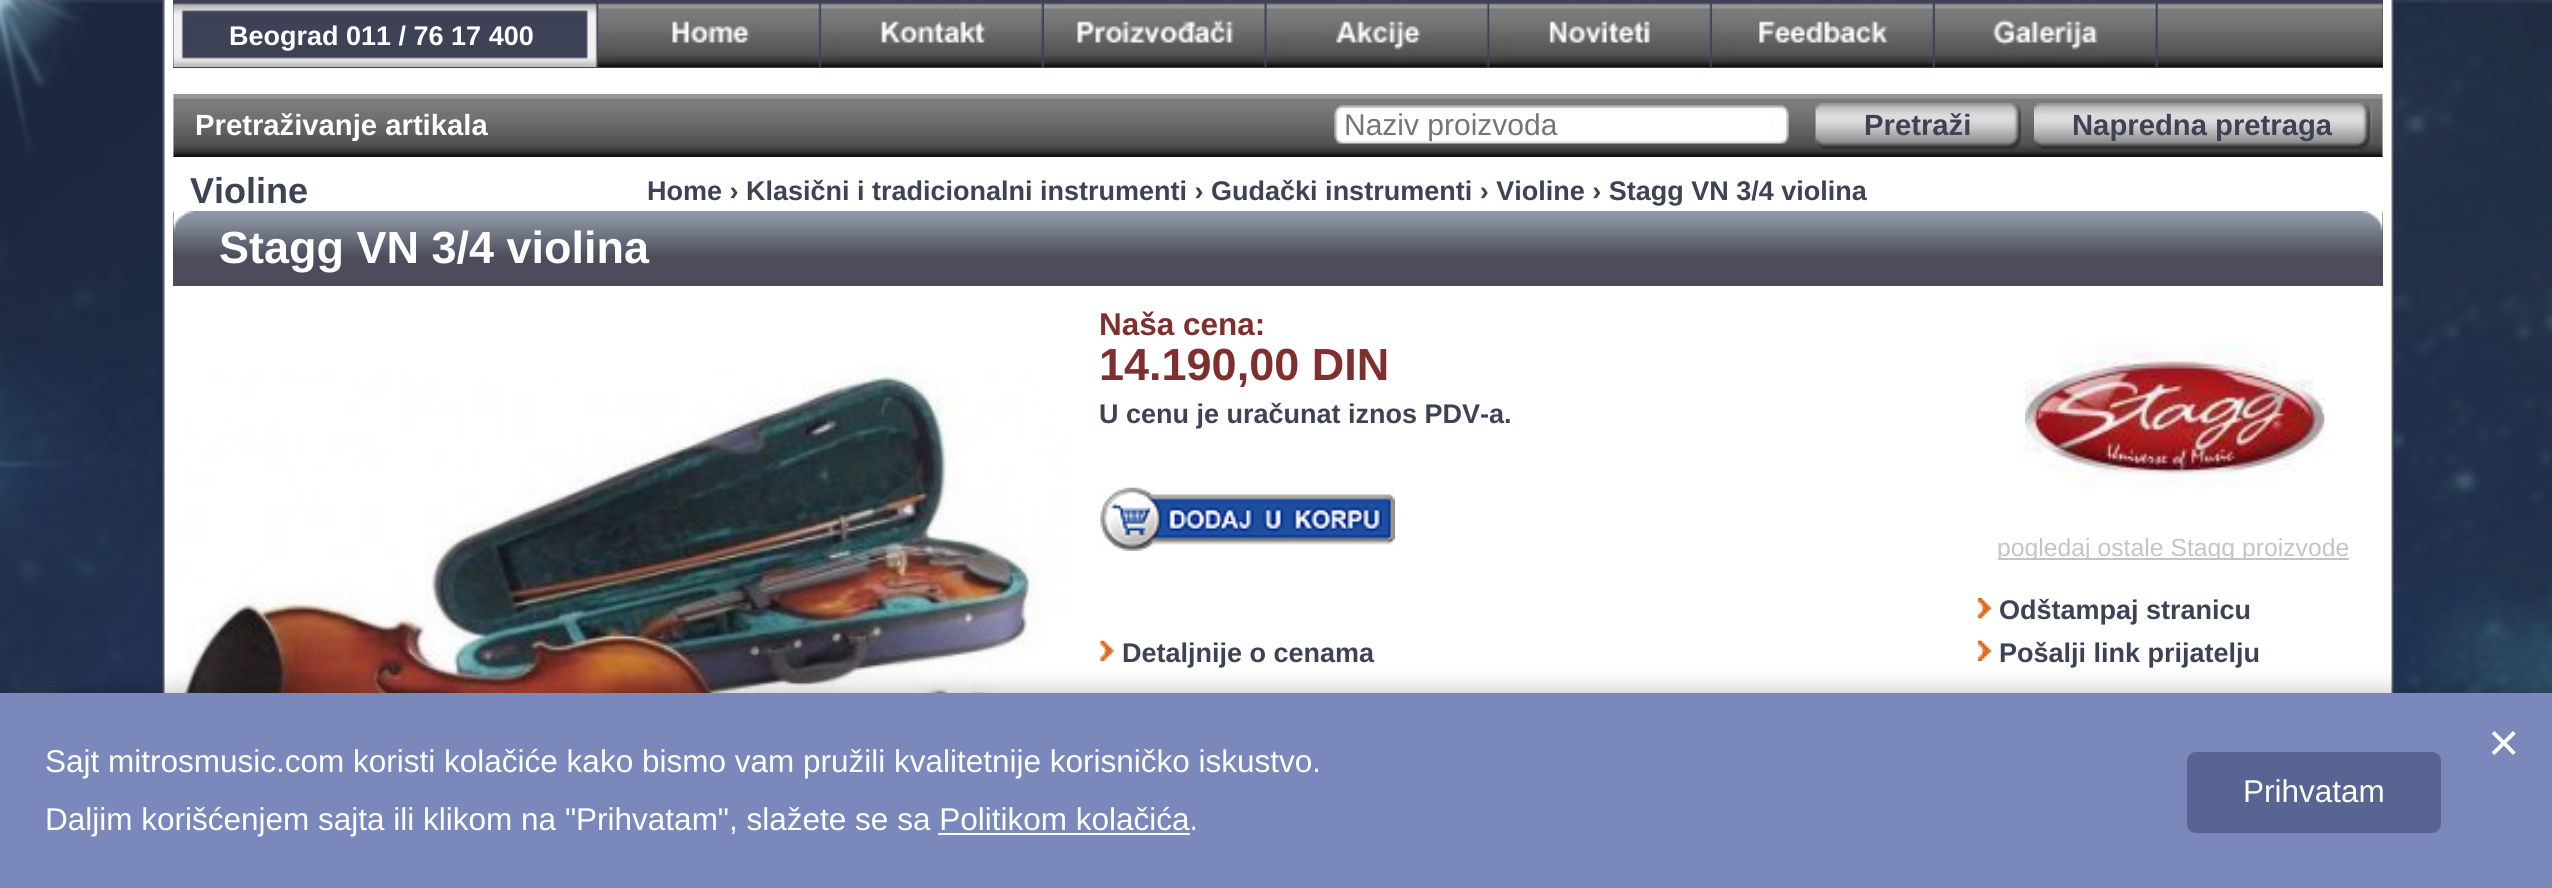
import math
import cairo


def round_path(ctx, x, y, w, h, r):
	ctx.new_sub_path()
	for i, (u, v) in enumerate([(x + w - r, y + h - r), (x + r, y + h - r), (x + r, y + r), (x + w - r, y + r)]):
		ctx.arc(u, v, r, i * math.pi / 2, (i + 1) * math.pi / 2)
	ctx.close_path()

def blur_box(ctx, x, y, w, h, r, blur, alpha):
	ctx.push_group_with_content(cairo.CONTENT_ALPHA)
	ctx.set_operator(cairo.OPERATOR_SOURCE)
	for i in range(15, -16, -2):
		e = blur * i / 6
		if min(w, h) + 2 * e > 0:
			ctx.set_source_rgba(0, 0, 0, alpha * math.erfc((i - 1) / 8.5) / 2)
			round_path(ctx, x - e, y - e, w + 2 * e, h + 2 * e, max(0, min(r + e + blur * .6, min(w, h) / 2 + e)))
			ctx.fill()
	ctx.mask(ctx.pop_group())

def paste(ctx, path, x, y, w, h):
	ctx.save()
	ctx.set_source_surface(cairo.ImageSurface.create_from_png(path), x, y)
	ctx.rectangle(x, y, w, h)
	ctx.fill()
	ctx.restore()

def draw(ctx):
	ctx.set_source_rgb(1, 1, 1)
	ctx.paint()
	paste(ctx, 'media/1.png', 0, 0, 2552, 693)
	paste(ctx, 'media/2.png', 162, 0, 2232, 693)
	ctx.set_source_rgb(0.243, 0.263, 0.337)
	ctx.rectangle(173, 0, 2210, 68)
	ctx.fill()
	paste(ctx, 'media/3.png', 173, 0, 426, 67)
	ctx.select_font_face('Liberation Sans', cairo.FONT_SLANT_NORMAL, cairo.FONT_WEIGHT_BOLD)
	ctx.set_font_size(27)
	ctx.set_source_rgb(1, 1, 1)
	ctx.move_to(229, 45)
	ctx.show_text('Beograd 011 / 76 17 400')
	paste(ctx, 'media/4.png', 598, 3, 1785, 64)
	paste(ctx, 'media/5.png', 598, 3, 224, 64)
	paste(ctx, 'media/6.png', 821, 3, 223, 64)
	paste(ctx, 'media/7.png', 1065, 3, 202, 64)
	paste(ctx, 'media/8.png', 1266, 3, 224, 64)
	paste(ctx, 'media/9.png', 1489, 3, 224, 64)
	paste(ctx, 'media/10.png', 1712, 3, 223, 64)
	paste(ctx, 'media/11.png', 1993, 3, 165, 64)
	paste(ctx, 'media/12.png', 173, 94, 2210, 63)
	ctx.set_font_size(29.25)
	ctx.move_to(195, 135)
	ctx.show_text('Pretraživanje artikala')
	paste(ctx, 'media/13.png', 1334, 105, 455, 39)
	ctx.select_font_face('Liberation Sans')
	ctx.set_font_size(30)
	ctx.set_source_rgb(0.459, 0.459, 0.459)
	ctx.move_to(1344, 135)
	ctx.show_text('Naziv proizvoda')
	paste(ctx, 'media/14.png', 1815, 103, 208, 47)
	paste(ctx, 'media/15.png', 1815, 103, 8, 47)
	ctx.select_font_face('Liberation Sans', cairo.FONT_SLANT_NORMAL, cairo.FONT_WEIGHT_BOLD)
	ctx.set_font_size(29.25)
	ctx.set_source_rgb(0.239, 0.259, 0.333)
	ctx.move_to(1864, 135)
	ctx.show_text('Pretraži')
	paste(ctx, 'media/16.png', 2008, 103, 15, 47)
	paste(ctx, 'media/17.png', 2042, 103, 330, 47)
	paste(ctx, 'media/18.png', 2034, 103, 8, 47)
	ctx.move_to(2072, 135)
	ctx.show_text('Napredna pretraga')
	paste(ctx, 'media/19.png', 2357, 103, 15, 47)
	ctx.set_font_size(36)
	ctx.move_to(190, 203)
	ctx.show_text('Violine')
	ctx.set_font_size(27)
	ctx.move_to(647, 200)
	ctx.show_text('Home › Klasični i tradicionalni instrumenti › Gudački instrumenti › Violine › Stagg VN 3/4 violina')
	ctx.set_source_rgb(0.302, 0.298, 0.361)
	ctx.rectangle(173, 212, 2210, 74)
	ctx.fill()
	paste(ctx, 'media/20.png', 173, 211, 2210, 45)
	paste(ctx, 'media/21.png', 173, 211, 21, 36)
	ctx.set_font_size(45)
	ctx.set_source_rgb(1, 1, 1)
	ctx.move_to(219, 263)
	ctx.show_text('Stagg VN 3/4 violina')
	paste(ctx, 'media/22.png', 2362, 211, 21, 36)
	paste(ctx, 'media/23.png', 174, 365, 899, 328)
	ctx.set_font_size(31.5)
	ctx.set_source_rgb(0.502, 0.184, 0.184)
	ctx.move_to(1099, 335)
	ctx.show_text('Naša cena:')
	ctx.set_font_size(45)
	ctx.move_to(1099, 380)
	ctx.show_text('14.190,00 DIN')
	ctx.set_font_size(27)
	ctx.set_source_rgb(0.239, 0.259, 0.333)
	ctx.move_to(1099, 423)
	ctx.show_text('U cenu je uračunat iznos PDV-a.')
	paste(ctx, 'media/24.png', 1100, 487, 295, 64)
	paste(ctx, 'media/25.png', 2025, 343, 300, 146)
	ctx.set_source_rgb(0.761, 0.769, 0.78)
	ctx.rectangle(1998, 558, 351, 2)
	ctx.fill()
	ctx.save()
	ctx.rectangle(1978, 308, 394, 252)
	ctx.clip()
	ctx.select_font_face('Liberation Sans')
	ctx.set_font_size(24.75)
	ctx.move_to(1997, 556)
	ctx.show_text('pogledaj ostale Stagg proizvode')
	ctx.restore()
	paste(ctx, 'media/26.png', 1977, 598, 15, 21)
	ctx.set_source_rgb(0.239, 0.259, 0.333)
	ctx.move_to(1999, 619)
	ctx.show_text('Odštampaj stranicu')
	paste(ctx, 'media/27.png', 1100, 640, 14, 21)
	ctx.move_to(1122, 662)
	ctx.show_text('Detaljnije o cenama')
	paste(ctx, 'media/28.png', 1977, 640, 15, 21)
	ctx.move_to(1999, 662)
	ctx.show_text('Pošalji link prijatelju')
	ctx.set_source_rgb(0, 0, 0)
	blur_box(ctx, 0, 689, 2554, 195, 0, 11, 0.2)
	ctx.set_source_rgb(0.478, 0.533, 0.737)
	ctx.rectangle(0, 693, 2552, 195)
	ctx.fill()
	ctx.select_font_face('Liberation Sans')
	ctx.set_font_size(54)
	ctx.set_source_rgb(1, 1, 1)
	ctx.move_to(2488, 761)
	ctx.show_text('×')
	ctx.set_font_size(31.5)
	ctx.move_to(45, 772)
	ctx.show_text('Sajt mitrosmusic.com koristi kolačiće kako bismo vam pružili kvalitetnije korisničko iskustvo.')
	ctx.move_to(45, 830)
	ctx.show_text('Daljim korišćenjem sajta ili klikom na "Prihvatam", slažete se sa Politikom kolačića.')
	ctx.rectangle(938, 833, 252, 2)
	ctx.fill()
	ctx.set_source_rgb(0.345, 0.392, 0.569)
	round_path(ctx, 2187, 752, 254, 81, 9)
	ctx.fill()
	ctx.set_source_rgb(1, 1, 1)
	ctx.move_to(2243, 802)
	ctx.show_text('Prihvatam')


surface = cairo.ImageSurface(cairo.FORMAT_RGB24, 2552, 888)
ctx = cairo.Context(surface)
options = cairo.FontOptions()
options.set_hint_metrics(cairo.HINT_METRICS_OFF)
options.set_hint_style(cairo.HINT_STYLE_NONE)
ctx.set_font_options(options)
ctx.set_miter_limit(4)
draw(ctx)
surface.write_to_png('image.png')
